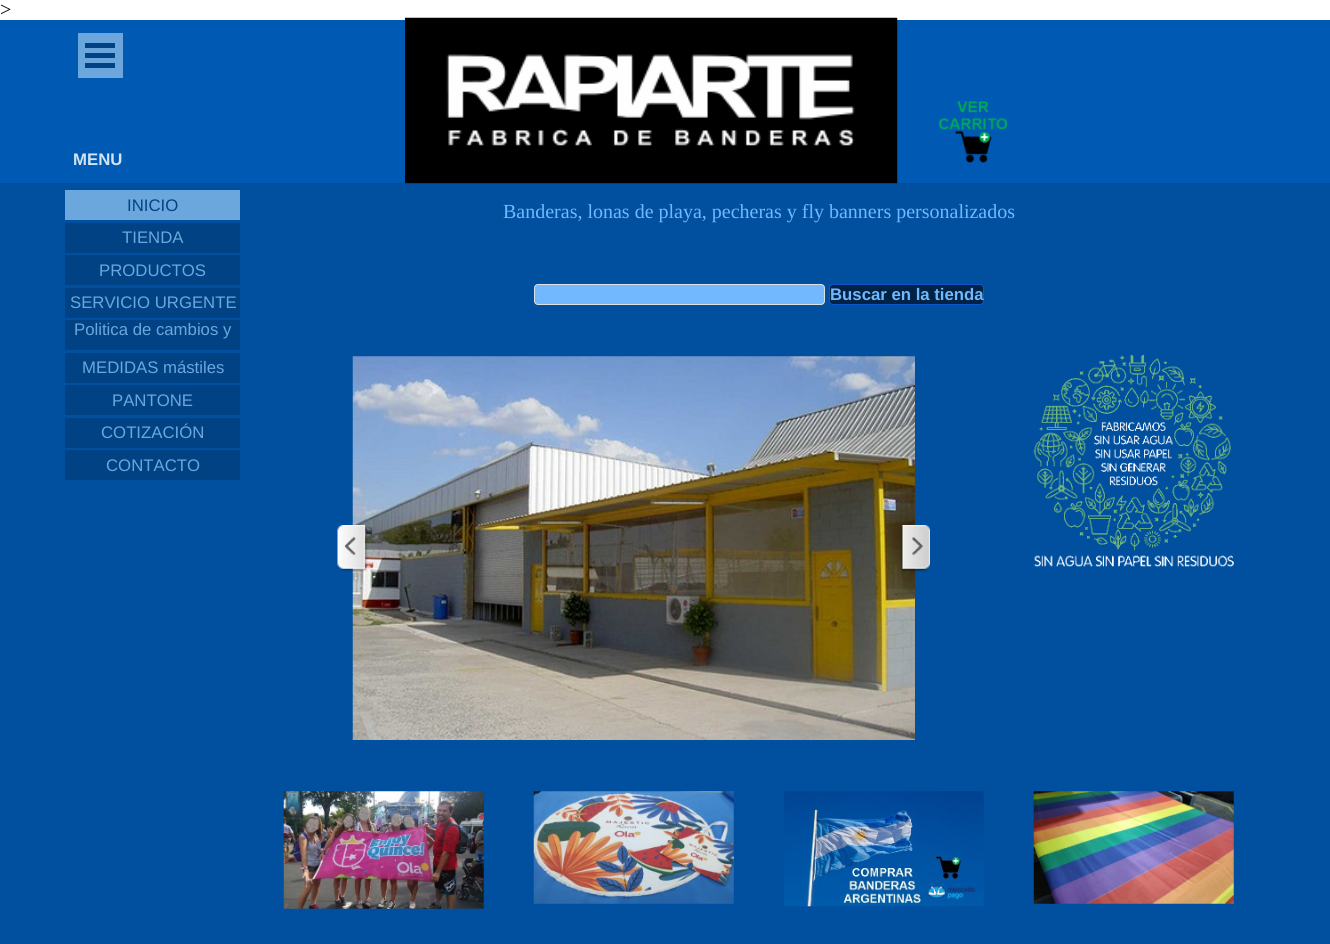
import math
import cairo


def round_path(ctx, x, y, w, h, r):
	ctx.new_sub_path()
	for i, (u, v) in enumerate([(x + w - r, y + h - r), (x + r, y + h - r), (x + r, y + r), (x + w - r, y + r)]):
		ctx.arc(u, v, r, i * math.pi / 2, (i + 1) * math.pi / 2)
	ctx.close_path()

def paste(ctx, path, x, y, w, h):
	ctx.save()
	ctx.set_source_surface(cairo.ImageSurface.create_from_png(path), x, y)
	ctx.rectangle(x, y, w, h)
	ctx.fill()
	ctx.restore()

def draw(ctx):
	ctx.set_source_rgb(1, 1, 1)
	ctx.paint()
	ctx.select_font_face('Liberation Serif')
	ctx.set_font_size(20)
	ctx.set_source_rgb(0, 0, 0)
	ctx.move_to(0, 16)
	ctx.show_text('>')
	ctx.set_source_rgb(0, 0.314, 0.624)
	ctx.rectangle(0, 183, 1330, 761)
	ctx.fill()
	ctx.set_source_rgb(0, 0.349, 0.702)
	ctx.rectangle(0, 20, 1330, 163)
	ctx.fill()
	ctx.set_source_rgb(0.42, 0.655, 0.863)
	ctx.rectangle(78, 33, 45, 45)
	ctx.fill()
	ctx.set_source_rgb(0, 0.259, 0.518)
	ctx.rectangle(85, 43, 30, 5)
	ctx.rectangle(85, 53, 30, 5)
	ctx.rectangle(85, 63, 30, 5)
	ctx.fill()
	paste(ctx, 'media/1.png', 405, 17, 493, 167)
	ctx.select_font_face('Liberation Sans', cairo.FONT_SLANT_NORMAL, cairo.FONT_WEIGHT_BOLD)
	ctx.set_font_size(16.75)
	ctx.set_source_rgb(0.824, 0.894, 0.957)
	ctx.move_to(73, 165)
	ctx.show_text('MENU')
	paste(ctx, 'media/2.png', 938, 101, 70, 62)
	ctx.set_source_rgb(0.42, 0.655, 0.863)
	ctx.rectangle(65, 190, 175, 30)
	ctx.fill()
	ctx.select_font_face('Liberation Sans')
	ctx.set_source_rgb(0, 0.259, 0.518)
	ctx.move_to(127, 211)
	ctx.show_text('INICIO')
	ctx.rectangle(65, 223, 175, 30)
	ctx.fill()
	ctx.set_source_rgb(0.42, 0.655, 0.863)
	ctx.move_to(122, 243)
	ctx.show_text('TIENDA')
	ctx.set_source_rgb(0, 0.259, 0.518)
	ctx.rectangle(65, 255, 175, 30)
	ctx.fill()
	ctx.set_source_rgb(0.42, 0.655, 0.863)
	ctx.move_to(99, 276)
	ctx.show_text('PRODUCTOS')
	ctx.set_source_rgb(0, 0.259, 0.518)
	ctx.rectangle(65, 288, 175, 30)
	ctx.fill()
	ctx.set_source_rgb(0.42, 0.655, 0.863)
	ctx.move_to(70, 308)
	ctx.show_text('SERVICIO URGENTE')
	ctx.set_source_rgb(0, 0.259, 0.518)
	ctx.rectangle(65, 320, 175, 30)
	ctx.fill()
	ctx.set_source_rgb(0.42, 0.655, 0.863)
	ctx.move_to(74, 335)
	ctx.show_text('Politica de cambios y')
	ctx.set_source_rgb(0, 0.259, 0.518)
	ctx.rectangle(65, 353, 175, 30)
	ctx.fill()
	ctx.set_source_rgb(0.42, 0.655, 0.863)
	ctx.move_to(82, 373)
	ctx.show_text('MEDIDAS mástiles')
	ctx.set_source_rgb(0, 0.259, 0.518)
	ctx.rectangle(65, 385, 175, 30)
	ctx.fill()
	ctx.set_source_rgb(0.42, 0.655, 0.863)
	ctx.move_to(112, 406)
	ctx.show_text('PANTONE')
	ctx.set_source_rgb(0, 0.259, 0.518)
	ctx.rectangle(65, 418, 175, 30)
	ctx.fill()
	ctx.set_source_rgb(0.42, 0.655, 0.863)
	ctx.move_to(101, 438)
	ctx.show_text('COTIZACIÓN')
	ctx.set_source_rgb(0, 0.259, 0.518)
	ctx.rectangle(65, 450, 175, 30)
	ctx.fill()
	ctx.set_source_rgb(0.42, 0.655, 0.863)
	ctx.move_to(106, 471)
	ctx.show_text('CONTACTO')
	ctx.select_font_face('Liberation Serif')
	ctx.set_font_size(20)
	ctx.set_source_rgb(0.443, 0.722, 1)
	ctx.move_to(503, 218)
	ctx.show_text('Banderas, lonas de playa, pecheras y fly banners personalizados')
	round_path(ctx, 534.5, 284.5, 290, 20, 3.5)
	ctx.fill_preserve()
	ctx.set_source_rgb(0.878, 0.878, 0.878)
	ctx.set_line_width(1)
	ctx.stroke()
	ctx.set_source_rgb(0, 0.133, 0.267)
	round_path(ctx, 829.5, 284.5, 154, 20, 3.5)
	ctx.fill_preserve()
	ctx.set_source_rgb(0.067, 0.333, 0.8)
	ctx.stroke()
	ctx.select_font_face('Liberation Sans', cairo.FONT_SLANT_NORMAL, cairo.FONT_WEIGHT_BOLD)
	ctx.set_font_size(16.75)
	ctx.set_source_rgb(0.443, 0.722, 1)
	ctx.move_to(830, 300)
	ctx.show_text('Buscar en la tienda')
	paste(ctx, 'media/3.png', 352, 356, 563, 384)
	paste(ctx, 'media/4.png', 337, 525, 31, 47)
	paste(ctx, 'media/5.png', 900, 525, 30, 47)
	paste(ctx, 'media/6.png', 1033, 355, 201, 212)
	paste(ctx, 'media/7.png', 283, 791, 201, 118)
	paste(ctx, 'media/8.png', 533, 791, 201, 113)
	paste(ctx, 'media/9.png', 784, 791, 200, 116)
	paste(ctx, 'media/10.png', 1033, 791, 201, 113)


surface = cairo.ImageSurface(cairo.FORMAT_RGB24, 1330, 944)
ctx = cairo.Context(surface)
options = cairo.FontOptions()
options.set_hint_metrics(cairo.HINT_METRICS_OFF)
options.set_hint_style(cairo.HINT_STYLE_NONE)
ctx.set_font_options(options)
ctx.set_miter_limit(4)
draw(ctx)
surface.write_to_png('image.png')
